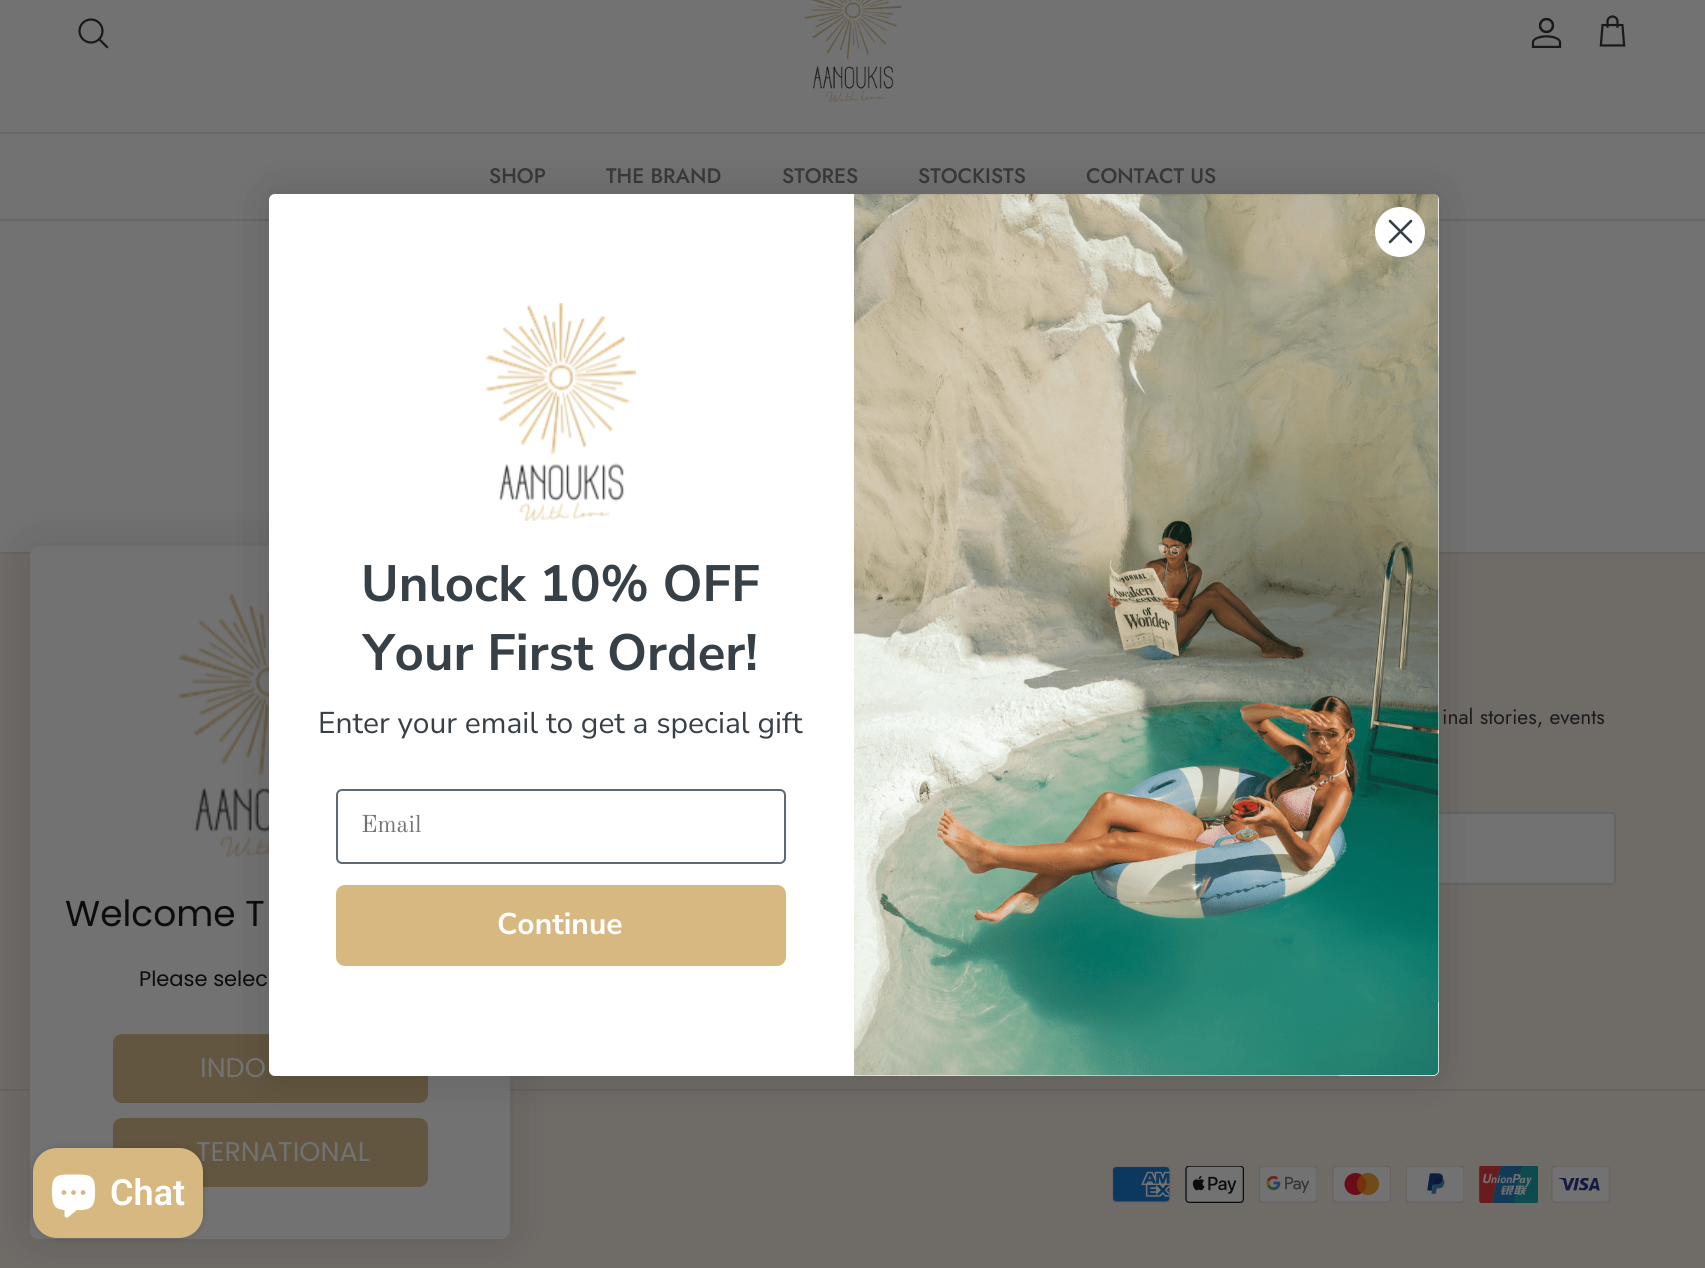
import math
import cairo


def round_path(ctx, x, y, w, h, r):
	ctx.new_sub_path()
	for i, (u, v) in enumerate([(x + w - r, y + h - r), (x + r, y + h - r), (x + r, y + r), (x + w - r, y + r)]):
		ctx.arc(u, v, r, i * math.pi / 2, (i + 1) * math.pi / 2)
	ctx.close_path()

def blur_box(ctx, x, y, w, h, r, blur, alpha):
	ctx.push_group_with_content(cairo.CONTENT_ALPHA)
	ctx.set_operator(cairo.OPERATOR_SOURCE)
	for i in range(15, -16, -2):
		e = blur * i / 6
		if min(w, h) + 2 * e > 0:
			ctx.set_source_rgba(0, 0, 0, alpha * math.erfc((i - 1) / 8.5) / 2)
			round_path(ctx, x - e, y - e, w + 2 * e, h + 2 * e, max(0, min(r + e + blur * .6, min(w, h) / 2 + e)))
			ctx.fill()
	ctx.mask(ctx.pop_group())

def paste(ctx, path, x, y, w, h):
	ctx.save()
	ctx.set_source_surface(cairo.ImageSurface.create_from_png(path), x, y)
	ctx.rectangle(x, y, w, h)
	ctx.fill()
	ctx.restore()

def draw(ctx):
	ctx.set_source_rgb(0.447, 0.447, 0.447)
	ctx.paint()
	ctx.set_source_rgb(0.396, 0.404, 0.412)
	ctx.rectangle(0, 132, 1705, 2)
	ctx.fill()
	ctx.arc(91, 31, 11.5, 0, 2 * math.pi)
	ctx.set_source_rgb(0.098, 0.098, 0.098)
	ctx.set_line_width(2.2)
	ctx.stroke()
	ctx.new_path()
	ctx.move_to(100.5, 40.5)
	ctx.line_to(107, 47)
	ctx.set_line_cap(cairo.LINE_CAP_SQUARE)
	ctx.stroke()
	paste(ctx, 'media/1.png', 804, 0, 98, 102)
	paste(ctx, 'media/2.png', 1531, 17, 31, 31)
	paste(ctx, 'media/3.png', 1599, 15, 27, 32)
	ctx.set_source_rgb(0.396, 0.404, 0.412)
	ctx.rectangle(0, 219, 1705, 2)
	ctx.fill()
	ctx.select_font_face('Jost Medium')
	ctx.set_font_size(21)
	ctx.set_source_rgb(0.224, 0.224, 0.227)
	for x, y, s in [
		(489, 183, 'SHOP'),
		(606, 183, 'THE BRAND'),
		(782, 183, 'STORES'),
		(918, 183, 'STOCKISTS'),
		(1086, 183, 'CONTACT US'),
	]:
		ctx.move_to(x, y)
		ctx.show_text(s)
	ctx.set_source_rgb(0.435, 0.424, 0.408)
	ctx.rectangle(0, 554, 1705, 714)
	ctx.fill()
	ctx.set_source_rgb(0.416, 0.384, 0.376)
	ctx.rectangle(0, 552, 1705, 2)
	ctx.fill()
	ctx.set_source_rgb(0.447, 0.447, 0.447)
	round_path(ctx, 1152, 813, 463, 71, 4)
	ctx.fill_preserve()
	ctx.set_source_rgb(0.392, 0.392, 0.392)
	ctx.set_line_width(2)
	ctx.set_line_cap(cairo.LINE_CAP_BUTT)
	ctx.stroke()
	ctx.set_source_rgb(0.416, 0.384, 0.376)
	ctx.rectangle(0, 1089, 1705, 2)
	ctx.fill()
	ctx.set_source_rgb(0.047, 0.047, 0.047)
	blur_box(ctx, 30, 546, 480, 693, 9, 22.5, 0.15)
	ctx.set_source_rgb(0.447, 0.447, 0.447)
	round_path(ctx, 30, 546, 480, 693, 9)
	ctx.fill()
	paste(ctx, 'media/13.png', 178, 590, 91, 267)
	ctx.set_source_rgb(0.384, 0.337, 0.251)
	round_path(ctx, 113, 1034, 315, 69, 9)
	ctx.fill()
	round_path(ctx, 113, 1118, 315, 69, 9)
	ctx.fill()
	ctx.set_source_rgb(0, 0, 0)
	blur_box(ctx, 269, 194, 1170, 882, 6, 22.5, 0.15)
	ctx.set_source_rgb(1, 1, 1)
	round_path(ctx, 269, 194, 1170, 882, 6)
	ctx.fill()
	paste(ctx, 'media/5.png', 854, 194, 585, 882)
	ctx.arc(1400, 232, 25, 0, 2 * math.pi)
	ctx.fill()
	ctx.new_path()
	ctx.move_to(1390, 221)
	ctx.line_to(1411, 242)
	ctx.move_to(1390, 242)
	ctx.line_to(1411, 221)
	ctx.close_path()
	ctx.set_source_rgb(0.216, 0.247, 0.278)
	ctx.set_line_width(2.6)
	ctx.set_line_cap(cairo.LINE_CAP_ROUND)
	ctx.set_line_join(cairo.LINE_JOIN_ROUND)
	ctx.stroke()
	paste(ctx, 'media/4.png', 485, 303, 151, 218)
	ctx.select_font_face('Nunito Sans', cairo.FONT_SLANT_NORMAL, cairo.FONT_WEIGHT_BOLD)
	ctx.set_font_size(51)
	ctx.move_to(361, 601)
	ctx.show_text('Unlock 10% OFF')
	ctx.move_to(363, 670)
	ctx.show_text('Your First Order!')
	ctx.select_font_face('Nunito Sans')
	ctx.set_font_size(30)
	ctx.move_to(318, 733)
	ctx.show_text('Enter your email to get a special gift')
	round_path(ctx, 337, 790, 448, 73, 5)
	ctx.set_source_rgb(0.376, 0.416, 0.447)
	ctx.set_line_width(2)
	ctx.set_line_cap(cairo.LINE_CAP_BUTT)
	ctx.set_line_join(cairo.LINE_JOIN_MITER)
	ctx.stroke()
	ctx.select_font_face('Old Standard TT')
	ctx.set_font_size(24)
	ctx.set_source_rgb(0.447, 0.447, 0.447)
	ctx.move_to(361, 832)
	ctx.show_text('Email')
	ctx.set_source_rgb(0.847, 0.722, 0.506)
	round_path(ctx, 336, 885, 450, 81, 9)
	ctx.fill()
	ctx.select_font_face('Nunito Sans', cairo.FONT_SLANT_NORMAL, cairo.FONT_WEIGHT_BOLD)
	ctx.set_font_size(30)
	ctx.set_source_rgb(1, 1, 1)
	ctx.move_to(497, 934)
	ctx.show_text('Continue')
	ctx.select_font_face('Jost')
	ctx.set_font_size(21)
	ctx.set_source_rgb(0.11, 0.11, 0.11)
	ctx.move_to(1442, 724)
	ctx.show_text('inal stories, events')
	paste(ctx, 'media/6.png', 1112, 1166, 59, 37)
	paste(ctx, 'media/7.png', 1185, 1166, 59, 37)
	paste(ctx, 'media/8.png', 1259, 1166, 58, 37)
	paste(ctx, 'media/9.png', 1332, 1166, 59, 37)
	paste(ctx, 'media/10.png', 1406, 1166, 58, 37)
	paste(ctx, 'media/11.png', 1479, 1166, 59, 37)
	paste(ctx, 'media/12.png', 1551, 1166, 60, 37)
	ctx.select_font_face('Poppins')
	ctx.set_font_size(36)
	ctx.set_source_rgb(0.047, 0.047, 0.047)
	ctx.move_to(65, 926)
	ctx.show_text('Welcome T')
	ctx.set_font_size(21)
	ctx.move_to(139, 986)
	ctx.show_text('Please selec')
	ctx.set_font_size(27)
	ctx.set_source_rgb(0.447, 0.447, 0.447)
	ctx.move_to(200, 1077)
	ctx.show_text('INDO')
	ctx.move_to(196, 1161)
	ctx.show_text('TERNATIONAL')
	ctx.set_source_rgb(0, 0, 0)
	blur_box(ctx, 33, 1148, 170, 90, 24, 4, 0.15)
	ctx.set_source_rgb(0.847, 0.722, 0.506)
	round_path(ctx, 33, 1148, 170, 90, 24)
	ctx.fill()
	paste(ctx, 'media/14.png', 51, 1174, 45, 44)
	ctx.select_font_face('Roboto SemiBold')
	ctx.set_font_size(36)
	ctx.set_source_rgb(1, 1, 1)
	ctx.move_to(110, 1205)
	ctx.show_text('Chat')


surface = cairo.ImageSurface(cairo.FORMAT_RGB24, 1705, 1268)
ctx = cairo.Context(surface)
options = cairo.FontOptions()
options.set_hint_metrics(cairo.HINT_METRICS_OFF)
options.set_hint_style(cairo.HINT_STYLE_NONE)
ctx.set_font_options(options)
ctx.set_miter_limit(4)
draw(ctx)
surface.write_to_png('image.png')
